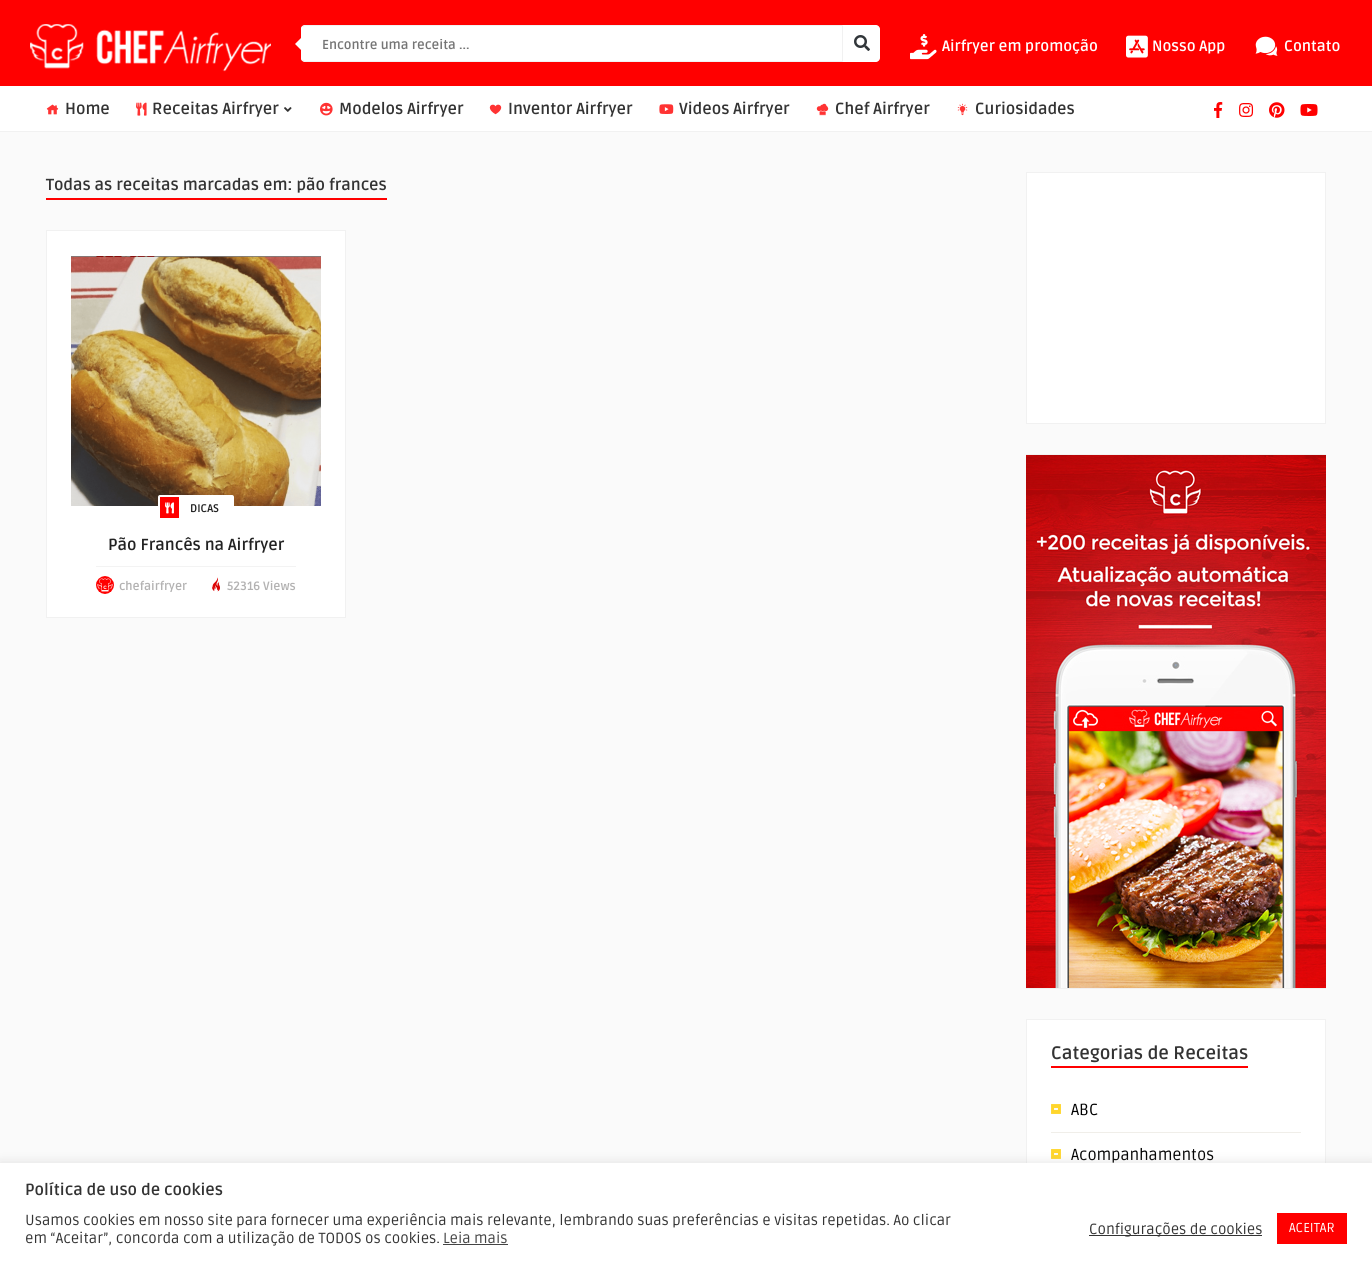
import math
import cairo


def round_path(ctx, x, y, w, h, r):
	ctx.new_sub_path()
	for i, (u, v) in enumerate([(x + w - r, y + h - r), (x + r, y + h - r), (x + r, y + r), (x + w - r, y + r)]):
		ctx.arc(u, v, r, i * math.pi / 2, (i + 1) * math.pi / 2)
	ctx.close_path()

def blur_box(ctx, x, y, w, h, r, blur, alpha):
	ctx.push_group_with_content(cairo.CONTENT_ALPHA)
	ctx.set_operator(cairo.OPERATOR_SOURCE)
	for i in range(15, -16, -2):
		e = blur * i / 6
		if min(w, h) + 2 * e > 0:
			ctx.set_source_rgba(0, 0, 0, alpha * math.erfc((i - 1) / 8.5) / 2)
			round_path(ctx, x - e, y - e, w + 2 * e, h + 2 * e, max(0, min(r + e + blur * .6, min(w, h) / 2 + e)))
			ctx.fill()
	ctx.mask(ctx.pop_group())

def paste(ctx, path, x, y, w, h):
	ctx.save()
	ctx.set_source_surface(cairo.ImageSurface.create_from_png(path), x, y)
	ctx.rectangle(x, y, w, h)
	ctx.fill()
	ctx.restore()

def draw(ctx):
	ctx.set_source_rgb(0.98, 0.98, 0.98)
	ctx.paint()
	ctx.set_source_rgb(1, 0, 0)
	ctx.rectangle(0, 0, 1372, 86)
	ctx.fill()
	paste(ctx, 'media/1.png', 30, 24, 241, 48)
	ctx.set_source_rgb(1, 1, 1)
	ctx.new_path()
	ctx.move_to(305, 25)
	ctx.line_to(843, 25)
	ctx.line_to(843, 62)
	ctx.line_to(305, 62)
	ctx.curve_to(303, 62, 301, 60, 301, 58)
	ctx.line_to(301, 29)
	ctx.curve_to(301, 27, 303, 25, 305, 25)
	ctx.close_path()
	ctx.fill()
	ctx.set_source_rgb(0.945, 0.945, 0.945)
	ctx.new_path()
	ctx.move_to(305, 25)
	ctx.line_to(302, 26)
	ctx.line_to(303, 27)
	ctx.line_to(305, 26)
	ctx.line_to(842, 26)
	ctx.line_to(843, 25)
	ctx.close_path()
	ctx.fill()
	ctx.new_path()
	ctx.move_to(843, 25)
	ctx.line_to(842, 26)
	ctx.line_to(842, 61)
	ctx.line_to(843, 62)
	ctx.close_path()
	ctx.fill()
	ctx.new_path()
	ctx.move_to(843, 62)
	ctx.line_to(842, 61)
	ctx.line_to(305, 61)
	ctx.line_to(303, 60)
	ctx.line_to(302, 61)
	ctx.line_to(305, 62)
	ctx.close_path()
	ctx.fill()
	ctx.set_source_rgb(1, 1, 1)
	ctx.new_path()
	ctx.move_to(301, 29)
	ctx.line_to(301, 58)
	ctx.curve_to(301, 59, 301.5, 60, 302, 61)
	ctx.line_to(303, 60)
	ctx.curve_to(302, 60, 302, 59, 302, 58)
	ctx.line_to(302, 29)
	ctx.curve_to(302, 28, 302, 27, 303, 27)
	ctx.line_to(302, 26)
	ctx.curve_to(301.5, 27, 301, 28, 301, 29)
	ctx.close_path()
	ctx.fill()
	ctx.new_path()
	ctx.move_to(305, 34)
	ctx.line_to(305, 54)
	ctx.line_to(295, 44)
	ctx.close_path()
	ctx.fill()
	ctx.select_font_face('Ruda', cairo.FONT_SLANT_NORMAL, cairo.FONT_WEIGHT_BOLD)
	ctx.set_font_size(13)
	ctx.set_source_rgb(0.459, 0.459, 0.459)
	ctx.move_to(322, 49)
	ctx.show_text('Encontre uma receita ...')
	ctx.set_source_rgb(1, 1, 1)
	ctx.new_path()
	ctx.move_to(843, 25)
	ctx.line_to(876, 25)
	ctx.curve_to(878, 25, 880, 27, 880, 29)
	ctx.line_to(880, 58)
	ctx.curve_to(880, 60, 878, 62, 876, 62)
	ctx.line_to(843, 62)
	ctx.close_path()
	ctx.fill()
	paste(ctx, 'media/2.png', 854, 35, 16, 16)
	paste(ctx, 'media/3.png', 910, 34, 27, 26)
	ctx.set_font_size(15)
	ctx.move_to(942, 51)
	ctx.show_text('Airfryer em promoção')
	paste(ctx, 'media/4.png', 1126, 35, 22, 23)
	ctx.move_to(1152, 51)
	ctx.show_text('Nosso App')
	paste(ctx, 'media/5.png', 1255, 36, 23, 20)
	ctx.move_to(1284, 51)
	ctx.show_text('Contato')
	ctx.rectangle(0, 86, 1372, 45)
	ctx.fill()
	ctx.set_source_rgb(0.945, 0.945, 0.945)
	ctx.rectangle(0, 131, 1372, 1)
	ctx.fill()
	paste(ctx, 'media/6.png', 46, 104, 13, 11)
	ctx.set_font_size(16)
	ctx.set_source_rgb(0.2, 0.2, 0.2)
	ctx.move_to(65, 114)
	ctx.show_text('Home')
	paste(ctx, 'media/7.png', 136, 102, 11, 14)
	ctx.move_to(152, 114)
	ctx.show_text('Receitas Airfryer')
	paste(ctx, 'media/8.png', 284, 107, 8, 5)
	paste(ctx, 'media/9.png', 320, 102, 13, 14)
	ctx.move_to(339, 114)
	ctx.show_text('Modelos Airfryer')
	paste(ctx, 'media/10.png', 489, 104, 13, 11)
	ctx.move_to(508, 114)
	ctx.show_text('Inventor Airfryer')
	paste(ctx, 'media/11.png', 659, 104, 15, 10)
	ctx.move_to(679, 114)
	ctx.show_text('Videos Airfryer')
	paste(ctx, 'media/12.png', 816, 103, 13, 13)
	ctx.move_to(835, 114)
	ctx.show_text('Chef Airfryer')
	paste(ctx, 'media/13.png', 957, 103, 11, 13)
	ctx.move_to(975, 114)
	ctx.show_text('Curiosidades')
	paste(ctx, 'media/14.png', 1214, 102, 9, 16)
	paste(ctx, 'media/15.png', 1239, 103, 15, 14)
	paste(ctx, 'media/16.png', 1269, 102, 16, 16)
	paste(ctx, 'media/17.png', 1300, 104, 18, 12)
	ctx.set_source_rgb(1, 0, 0)
	ctx.rectangle(46, 198, 341, 2)
	ctx.fill()
	ctx.set_source_rgb(0.2, 0.2, 0.2)
	ctx.move_to(46, 190)
	ctx.show_text('Todas as receitas marcadas em: pão frances')
	ctx.set_source_rgb(1, 1, 1)
	ctx.rectangle(46.5, 230.5, 299, 387)
	ctx.fill_preserve()
	ctx.set_source_rgb(0.945, 0.945, 0.945)
	ctx.set_line_width(1)
	ctx.stroke()
	paste(ctx, 'media/18.png', 71, 256, 250, 250)
	ctx.set_source_rgb(1, 1, 1)
	round_path(ctx, 158, 495, 76, 27, 2)
	ctx.fill()
	ctx.set_source_rgb(1, 0, 0)
	ctx.rectangle(160, 497, 19, 21)
	ctx.fill()
	paste(ctx, 'media/19.png', 165, 502, 9, 12)
	ctx.set_font_size(11)
	ctx.set_source_rgb(0.133, 0.133, 0.133)
	ctx.move_to(190, 512)
	ctx.show_text('DICAS')
	ctx.set_font_size(16)
	ctx.move_to(108, 550)
	ctx.show_text('Pão Francês na Airfryer')
	ctx.set_source_rgb(0.953, 0.953, 0.953)
	ctx.rectangle(96, 566, 200, 1)
	ctx.fill()
	paste(ctx, 'media/20.png', 96, 576, 18, 18)
	ctx.set_font_size(12)
	ctx.set_source_rgb(0.702, 0.698, 0.698)
	ctx.move_to(119, 590)
	ctx.show_text('chefairfryer')
	paste(ctx, 'media/21.png', 211, 577, 9, 15)
	ctx.move_to(227, 590)
	ctx.show_text('52316 Views')
	ctx.set_source_rgb(1, 1, 1)
	ctx.rectangle(1026.5, 172.5, 299, 251)
	ctx.fill_preserve()
	ctx.set_source_rgb(0.945, 0.945, 0.945)
	ctx.stroke()
	ctx.rectangle(1026.5, 454.5, 299, 534)
	ctx.stroke()
	paste(ctx, 'media/22.png', 1026, 455, 300, 533)
	ctx.set_source_rgb(1, 1, 1)
	ctx.rectangle(1027, 1020, 298, 143)
	ctx.fill()
	ctx.rectangle(1026.5, 1019.5, 299, 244)
	ctx.set_source_rgb(0.945, 0.945, 0.945)
	ctx.stroke()
	ctx.set_source_rgb(1, 0, 0)
	ctx.rectangle(1051, 1066, 197, 2)
	ctx.fill()
	ctx.set_font_size(18)
	ctx.set_source_rgb(0.2, 0.2, 0.2)
	ctx.move_to(1051, 1059)
	ctx.show_text('Categorias de Receitas')
	paste(ctx, 'media/23.png', 1051, 1104, 10, 10)
	ctx.set_source_rgb(0.941, 0.933, 0.914)
	ctx.rectangle(1051, 1132, 250, 1)
	ctx.fill()
	ctx.select_font_face('Ruda')
	ctx.set_font_size(16)
	ctx.set_source_rgb(0, 0, 0)
	ctx.move_to(1071, 1115)
	ctx.show_text('ABC')
	paste(ctx, 'media/23.png', 1051, 1149, 10, 10)
	ctx.move_to(1071, 1160)
	ctx.show_text('Acompanhamentos')
	ctx.set_source_rgb(0.675, 0.671, 0.671)
	blur_box(ctx, 0, 1162, 1372, 100, 0, 5, 0.3)
	ctx.set_source_rgb(1, 1, 1)
	ctx.rectangle(0, 1163, 1372, 100)
	ctx.fill()
	ctx.select_font_face('Ruda', cairo.FONT_SLANT_NORMAL, cairo.FONT_WEIGHT_BOLD)
	ctx.set_source_rgb(0.2, 0.2, 0.2)
	ctx.move_to(25, 1195)
	ctx.show_text('Política de uso de cookies')
	ctx.select_font_face('Ruda')
	ctx.set_font_size(14.67)
	ctx.move_to(25, 1225)
	ctx.show_text('Usamos cookies em nosso site para fornecer uma experiência mais relevante, lembrando suas preferências e visitas repetidas. Ao clicar')
	ctx.move_to(25, 1243)
	ctx.show_text('em “Aceitar”, concorda com a utilização de TODOS os cookies.')
	ctx.set_source_rgb(0.267, 0.267, 0.267)
	ctx.move_to(443, 1243)
	ctx.show_text('Leia mais')
	ctx.rectangle(443, 1244, 65, 1)
	ctx.fill()
	ctx.set_source_rgb(0.2, 0.2, 0.2)
	ctx.rectangle(1089, 1235, 173, 1)
	ctx.fill()
	ctx.move_to(1089, 1234)
	ctx.show_text('Configurações de cookies')
	ctx.set_source_rgb(1, 0, 0)
	ctx.rectangle(1277, 1213, 70, 31)
	ctx.fill()
	ctx.set_font_size(13)
	ctx.set_source_rgb(1, 1, 1)
	ctx.move_to(1289, 1232)
	ctx.show_text('ACEITAR')


surface = cairo.ImageSurface(cairo.FORMAT_RGB24, 1372, 1263)
ctx = cairo.Context(surface)
options = cairo.FontOptions()
options.set_hint_metrics(cairo.HINT_METRICS_OFF)
options.set_hint_style(cairo.HINT_STYLE_NONE)
ctx.set_font_options(options)
ctx.set_miter_limit(4)
draw(ctx)
surface.write_to_png('image.png')
